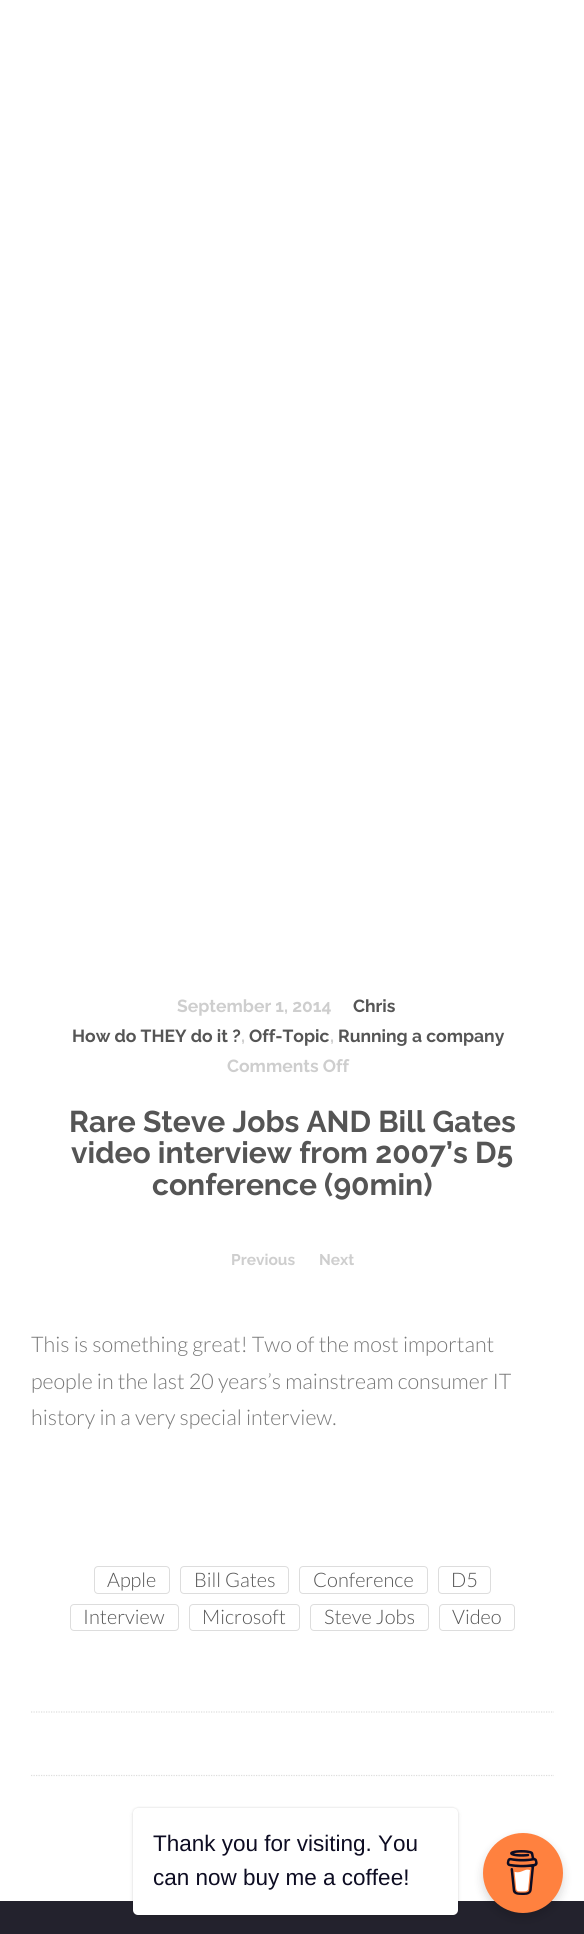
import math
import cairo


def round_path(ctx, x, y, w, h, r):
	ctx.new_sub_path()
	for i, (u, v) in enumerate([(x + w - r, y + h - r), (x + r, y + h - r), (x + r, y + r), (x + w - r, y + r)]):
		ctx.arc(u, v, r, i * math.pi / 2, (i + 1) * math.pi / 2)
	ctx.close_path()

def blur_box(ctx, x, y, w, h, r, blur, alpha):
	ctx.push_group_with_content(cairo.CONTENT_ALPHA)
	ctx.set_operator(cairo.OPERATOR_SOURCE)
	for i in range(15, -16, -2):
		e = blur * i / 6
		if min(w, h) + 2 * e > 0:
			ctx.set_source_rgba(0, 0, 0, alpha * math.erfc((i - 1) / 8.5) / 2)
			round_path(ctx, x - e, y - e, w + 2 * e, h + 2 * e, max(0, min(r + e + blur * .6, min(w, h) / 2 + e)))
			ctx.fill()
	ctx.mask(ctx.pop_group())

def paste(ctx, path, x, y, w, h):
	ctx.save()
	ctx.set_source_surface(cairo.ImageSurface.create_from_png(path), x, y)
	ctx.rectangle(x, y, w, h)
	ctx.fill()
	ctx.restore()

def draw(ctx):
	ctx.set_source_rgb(1, 1, 1)
	ctx.paint()
	ctx.select_font_face('Raleway Thin')
	ctx.set_font_size(17.5)
	ctx.set_source_rgb(0.808, 0.808, 0.808)
	ctx.move_to(177, 1012)
	ctx.show_text('September 1, 2014')
	ctx.set_source_rgb(0.333, 0.333, 0.333)
	ctx.move_to(353, 1012)
	ctx.show_text('Chris')
	ctx.move_to(72, 1042)
	ctx.show_text('How do THEY do it ?')
	ctx.set_source_rgb(0.808, 0.808, 0.808)
	ctx.move_to(241, 1042)
	ctx.show_text(',')
	ctx.set_source_rgb(0.333, 0.333, 0.333)
	ctx.move_to(249, 1042)
	ctx.show_text('Off-Topic')
	ctx.set_source_rgb(0.808, 0.808, 0.808)
	ctx.move_to(330, 1042)
	ctx.show_text(',')
	ctx.set_source_rgb(0.333, 0.333, 0.333)
	ctx.move_to(338, 1042)
	ctx.show_text('Running a company')
	ctx.set_source_rgb(0.808, 0.808, 0.808)
	ctx.move_to(227, 1072)
	ctx.show_text('Comments Off')
	ctx.set_font_size(30)
	ctx.set_source_rgb(0.333, 0.333, 0.333)
	for x, y, s in [
		(69, 1132, 'Rare Steve Jobs AND Bill Gates'),
		(71, 1163, 'video interview from 2007’s D5'),
		(152, 1195, 'conference (90min)'),
	]:
		ctx.move_to(x, y)
		ctx.show_text(s)
	ctx.set_font_size(15.5)
	ctx.set_source_rgb(0.808, 0.808, 0.808)
	ctx.move_to(231, 1265)
	ctx.show_text('Previous')
	ctx.move_to(319, 1265)
	ctx.show_text('Next')
	ctx.select_font_face('Lato Light')
	ctx.set_font_size(21.5)
	ctx.set_source_rgb(0.467, 0.467, 0.467)
	for x, y, s in [
		(31, 1352, 'This is something great! Two of the most important'),
		(31, 1389, 'people in the last 20 years’s mainstream consumer IT'),
		(31, 1425, 'history in a very special interview.'),
	]:
		ctx.move_to(x, y)
		ctx.show_text(s)
	round_path(ctx, 94.5, 1566.5, 75, 27, 3.5)
	ctx.set_source_rgb(0.867, 0.867, 0.867)
	ctx.set_line_width(1)
	ctx.stroke()
	ctx.set_font_size(20)
	ctx.set_source_rgb(0.333, 0.333, 0.333)
	ctx.move_to(107, 1587)
	ctx.show_text('Apple')
	round_path(ctx, 180.5, 1566.5, 108, 27, 3.5)
	ctx.set_source_rgb(0.867, 0.867, 0.867)
	ctx.stroke()
	ctx.set_source_rgb(0.333, 0.333, 0.333)
	ctx.move_to(194, 1587)
	ctx.show_text('Bill Gates')
	round_path(ctx, 299.5, 1566.5, 128, 27, 3.5)
	ctx.set_source_rgb(0.867, 0.867, 0.867)
	ctx.stroke()
	ctx.set_source_rgb(0.333, 0.333, 0.333)
	ctx.move_to(313, 1587)
	ctx.show_text('Conference')
	round_path(ctx, 438.5, 1566.5, 52, 27, 3.5)
	ctx.set_source_rgb(0.867, 0.867, 0.867)
	ctx.stroke()
	ctx.set_source_rgb(0.333, 0.333, 0.333)
	ctx.move_to(451, 1587)
	ctx.show_text('D5')
	round_path(ctx, 70.5, 1604.5, 108, 26, 3.5)
	ctx.set_source_rgb(0.867, 0.867, 0.867)
	ctx.stroke()
	ctx.set_source_rgb(0.333, 0.333, 0.333)
	ctx.move_to(83, 1624)
	ctx.show_text('Interview')
	round_path(ctx, 189.5, 1604.5, 110, 26, 3.5)
	ctx.set_source_rgb(0.867, 0.867, 0.867)
	ctx.stroke()
	ctx.set_source_rgb(0.333, 0.333, 0.333)
	ctx.move_to(202, 1624)
	ctx.show_text('Microsoft')
	round_path(ctx, 310.5, 1604.5, 118, 26, 3.5)
	ctx.set_source_rgb(0.867, 0.867, 0.867)
	ctx.stroke()
	ctx.set_source_rgb(0.333, 0.333, 0.333)
	ctx.move_to(324, 1624)
	ctx.show_text('Steve Jobs')
	round_path(ctx, 439.5, 1604.5, 75, 26, 3.5)
	ctx.set_source_rgb(0.867, 0.867, 0.867)
	ctx.stroke()
	ctx.set_source_rgb(0.333, 0.333, 0.333)
	ctx.move_to(452, 1624)
	ctx.show_text('Video')
	ctx.new_path()
	ctx.move_to(31, 1712)
	ctx.line_to(554, 1712)
	ctx.set_source_rgb(0.867, 0.867, 0.867)
	ctx.set_line_width(1.2)
	ctx.set_dash([1.25, 1.25])
	ctx.stroke()
	ctx.new_path()
	ctx.move_to(31, 1775.5)
	ctx.line_to(554, 1775.5)
	ctx.stroke()
	ctx.set_source_rgb(0.137, 0.133, 0.176)
	ctx.rectangle(0, 1901, 584, 33)
	ctx.fill()
	ctx.set_source_rgb(0, 0, 0)
	blur_box(ctx, 133, 1808, 325, 107, 5, 1, 0.15)
	blur_box(ctx, 133, 1810, 325, 108, 5, 3, 0.05)
	ctx.set_source_rgb(1, 1, 1)
	round_path(ctx, 133, 1808, 325, 107, 5)
	ctx.fill()
	ctx.select_font_face('Liberation Sans')
	ctx.set_font_size(22.5)
	ctx.set_source_rgb(0.051, 0.047, 0.133)
	ctx.move_to(153, 1851)
	ctx.show_text('Thank you for visiting. You')
	ctx.move_to(153, 1885)
	ctx.show_text('can now buy me a coffee!')
	ctx.set_source_rgb(0, 0, 0)
	blur_box(ctx, 483, 1838, 80, 80, 40, 5, 0.15)
	ctx.set_source_rgb(1, 0.506, 0.247)
	ctx.arc(523, 1873, 40, 0, 2 * math.pi)
	ctx.fill()
	paste(ctx, 'media/1.png', 506, 1850, 32, 45)


surface = cairo.ImageSurface(cairo.FORMAT_RGB24, 584, 1934)
ctx = cairo.Context(surface)
options = cairo.FontOptions()
options.set_hint_metrics(cairo.HINT_METRICS_OFF)
options.set_hint_style(cairo.HINT_STYLE_NONE)
ctx.set_font_options(options)
ctx.set_miter_limit(4)
draw(ctx)
surface.write_to_png('image.png')
